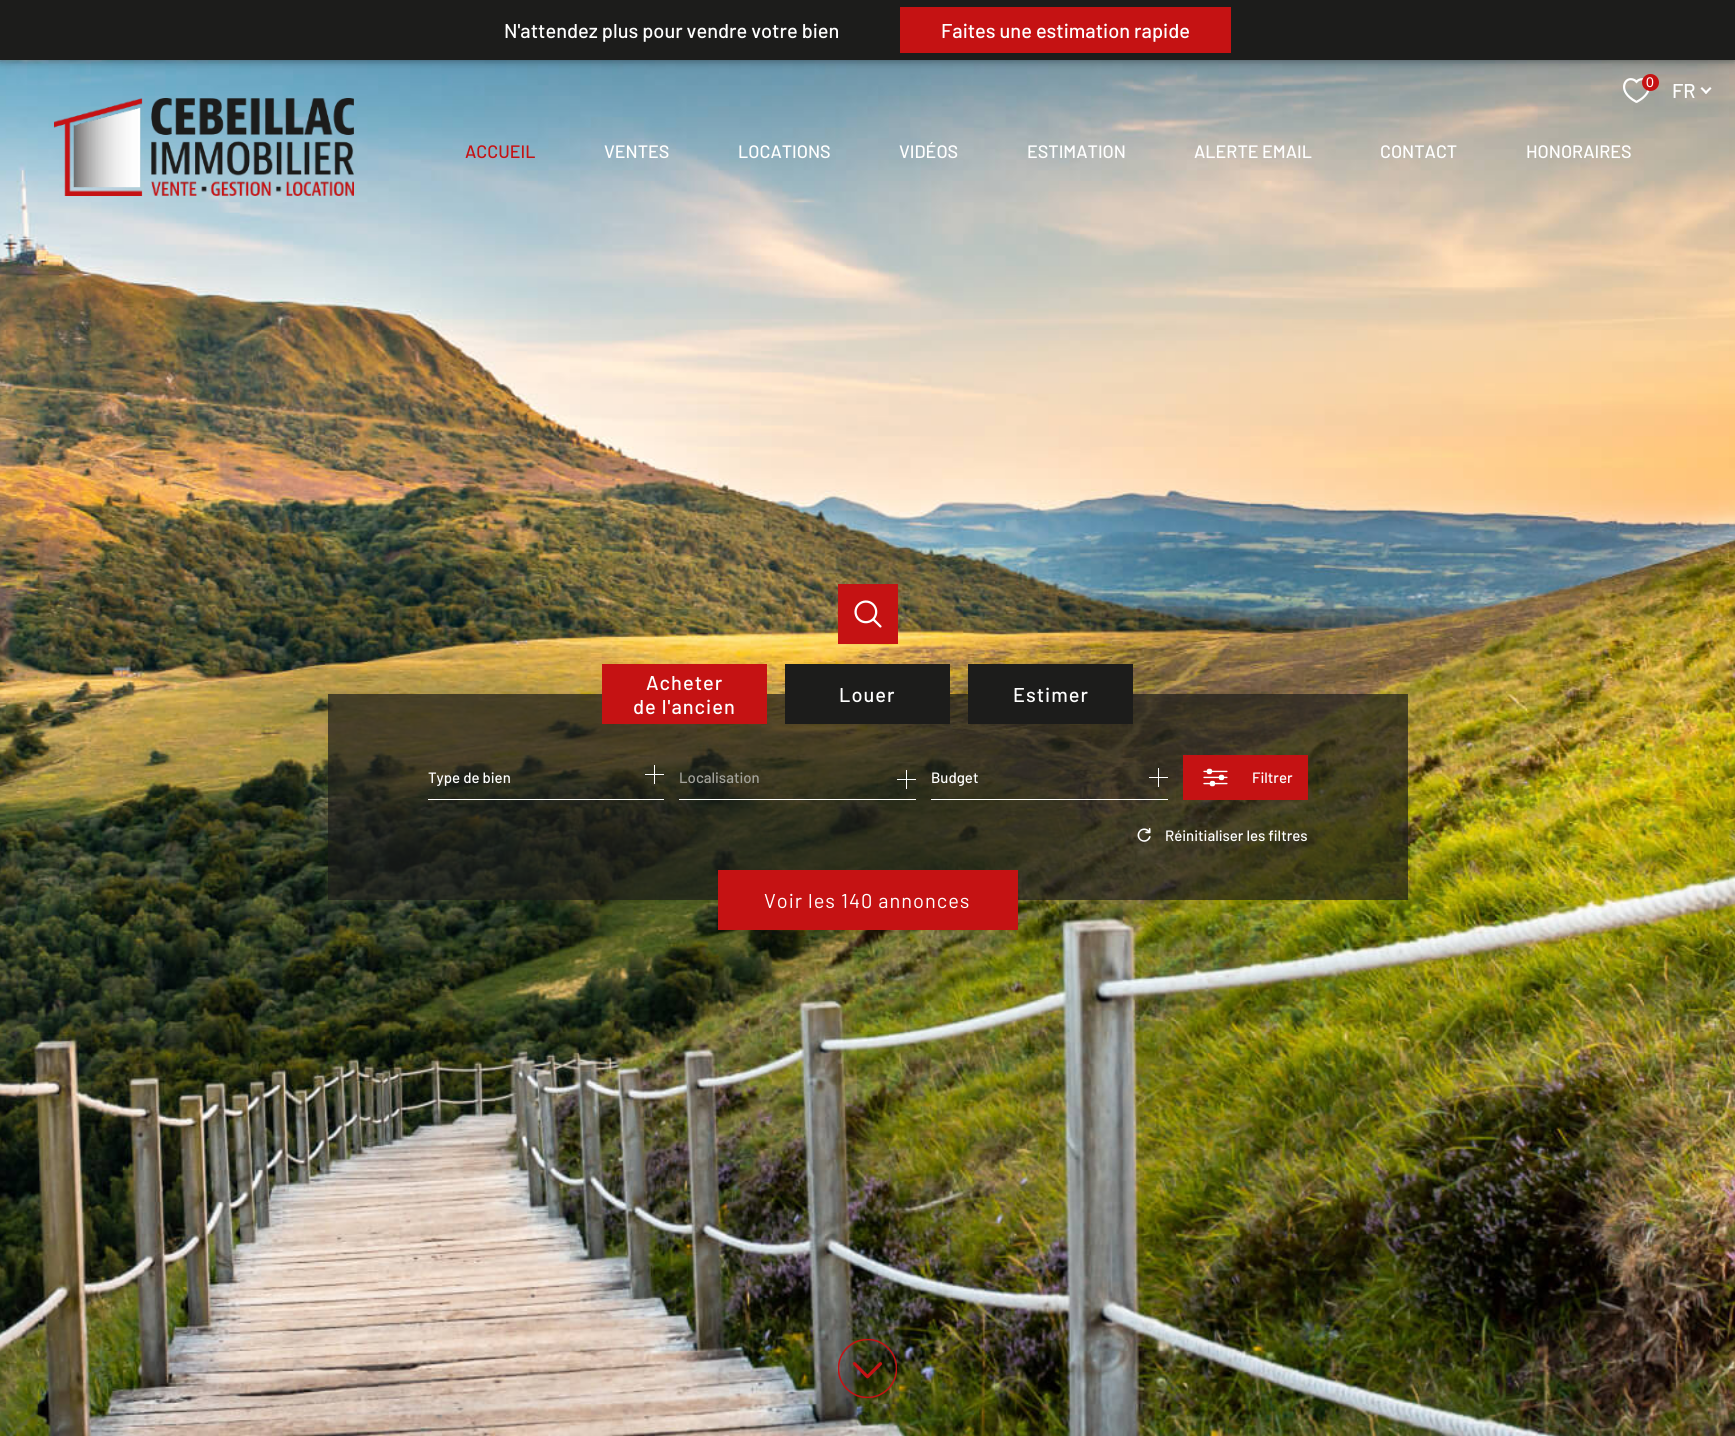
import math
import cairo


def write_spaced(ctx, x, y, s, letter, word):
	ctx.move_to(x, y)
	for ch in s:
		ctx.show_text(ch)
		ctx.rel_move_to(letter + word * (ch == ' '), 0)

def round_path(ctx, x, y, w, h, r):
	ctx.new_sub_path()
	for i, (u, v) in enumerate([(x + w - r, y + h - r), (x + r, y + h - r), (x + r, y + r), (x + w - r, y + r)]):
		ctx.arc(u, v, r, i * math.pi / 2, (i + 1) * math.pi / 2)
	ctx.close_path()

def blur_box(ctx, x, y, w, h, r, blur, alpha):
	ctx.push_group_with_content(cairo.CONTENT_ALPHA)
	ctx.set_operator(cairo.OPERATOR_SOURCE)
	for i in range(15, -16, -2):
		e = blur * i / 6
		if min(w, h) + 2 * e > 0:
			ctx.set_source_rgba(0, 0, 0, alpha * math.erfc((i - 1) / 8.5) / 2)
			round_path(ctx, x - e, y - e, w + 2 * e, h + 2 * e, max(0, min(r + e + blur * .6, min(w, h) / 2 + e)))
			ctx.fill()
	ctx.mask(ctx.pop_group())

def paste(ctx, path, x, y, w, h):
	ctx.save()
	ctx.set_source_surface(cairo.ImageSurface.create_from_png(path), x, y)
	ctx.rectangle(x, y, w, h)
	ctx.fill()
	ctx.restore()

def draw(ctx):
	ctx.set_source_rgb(1, 1, 1)
	ctx.paint()
	paste(ctx, 'media/1.png', 0, 60, 1735, 1376)
	ctx.set_source_rgb(0, 0, 0)
	blur_box(ctx, 0, 0, 1735, 60, 0, 5, 0.5)
	ctx.set_source_rgb(0.11, 0.11, 0.106)
	ctx.rectangle(0, 0, 1735, 60)
	ctx.fill()
	ctx.select_font_face('Barlow Medium')
	ctx.set_font_size(20)
	ctx.set_source_rgb(1, 1, 1)
	ctx.move_to(504, 38)
	ctx.show_text('N\'attendez plus pour vendre votre bien')
	ctx.set_source_rgb(0.773, 0.071, 0.078)
	ctx.rectangle(900, 7, 331, 46)
	ctx.fill()
	ctx.set_source_rgb(1, 1, 1)
	ctx.move_to(941, 38)
	ctx.show_text('Faites une estimation rapide')
	paste(ctx, 'media/2.png', 1623, 78, 27, 25)
	ctx.set_source_rgb(0.773, 0.071, 0.078)
	ctx.arc(1650.5, 82.5, 8.5, 0, 2 * math.pi)
	ctx.fill()
	ctx.select_font_face('Liberation Sans')
	ctx.set_font_size(14)
	ctx.set_source_rgb(1, 1, 1)
	ctx.move_to(1646, 87)
	ctx.show_text('0')
	ctx.select_font_face('Barlow Medium')
	ctx.set_font_size(20)
	ctx.move_to(1672, 98)
	ctx.show_text('FR')
	ctx.new_path()
	ctx.move_to(1710, 87)
	ctx.line_to(1711.5, 88.5)
	ctx.line_to(1706, 94)
	ctx.line_to(1704.5, 92.5)
	ctx.close_path()
	ctx.fill()
	ctx.new_path()
	ctx.move_to(1702, 87)
	ctx.line_to(1707.5, 92.5)
	ctx.line_to(1706, 94)
	ctx.line_to(1700.5, 88.5)
	ctx.close_path()
	ctx.fill()
	paste(ctx, 'media/3.png', 54, 98, 300, 98)
	ctx.set_font_size(18)
	ctx.set_source_rgb(0.773, 0.071, 0.078)
	ctx.move_to(465, 158)
	ctx.show_text('ACCUEIL')
	ctx.set_source_rgb(1, 1, 1)
	for x, y, s in [
		(604, 158, 'VENTES'),
		(738, 158, 'LOCATIONS'),
		(899, 158, 'VIDÉOS'),
		(1027, 158, 'ESTIMATION'),
		(1194, 158, 'ALERTE EMAIL'),
		(1380, 158, 'CONTACT'),
		(1526, 158, 'HONORAIRES'),
	]:
		ctx.move_to(x, y)
		ctx.show_text(s)
	ctx.set_source_rgb(0.773, 0.071, 0.078)
	ctx.rectangle(838, 584, 60, 60)
	ctx.fill()
	paste(ctx, 'media/4.png', 854, 600, 28, 28)
	ctx.set_source_rgba(0.11, 0.11, 0.106, 0.7)
	ctx.rectangle(328, 694, 1080, 206)
	ctx.fill()
	ctx.set_source_rgb(0.773, 0.071, 0.078)
	ctx.rectangle(602, 664, 165, 60)
	ctx.fill()
	ctx.set_font_size(20)
	ctx.set_source_rgb(1, 1, 1)
	write_spaced(ctx, 646, 690, 'Acheter', 1, 0)
	write_spaced(ctx, 633, 714, 'de l\'ancien', 1, 0)
	ctx.set_source_rgb(0.11, 0.11, 0.106)
	ctx.rectangle(785, 664, 165, 60)
	ctx.fill()
	ctx.set_source_rgb(1, 1, 1)
	write_spaced(ctx, 839, 702, 'Louer', 1, 0)
	ctx.set_source_rgb(0.11, 0.11, 0.106)
	ctx.rectangle(968, 664, 165, 60)
	ctx.fill()
	ctx.set_source_rgb(1, 1, 1)
	write_spaced(ctx, 1013, 702, 'Estimer', 1, 0)
	ctx.rectangle(428, 799, 236, 1)
	ctx.fill()
	ctx.set_font_size(15)
	ctx.move_to(428, 783)
	ctx.show_text('Type de bien')
	ctx.rectangle(645, 774, 19, 1)
	ctx.rectangle(654, 765, 1, 19)
	ctx.rectangle(679, 799, 237, 1)
	ctx.fill()
	ctx.set_source_rgb(0.639, 0.639, 0.612)
	ctx.move_to(679, 783)
	ctx.show_text('Localisation')
	ctx.set_source_rgb(1, 1, 1)
	ctx.rectangle(906, 770, 1, 19)
	ctx.rectangle(897, 779, 19, 1)
	ctx.rectangle(931, 799, 237, 1)
	ctx.fill()
	ctx.move_to(931, 783)
	ctx.show_text('Budget')
	ctx.rectangle(1158, 768, 1, 19)
	ctx.rectangle(1149, 777, 19, 1)
	ctx.fill()
	ctx.set_source_rgb(0.773, 0.071, 0.078)
	ctx.rectangle(1183, 755, 125, 45)
	ctx.fill()
	paste(ctx, 'media/5.png', 1203, 768, 25, 19)
	ctx.set_source_rgb(1, 1, 1)
	ctx.move_to(1252, 783)
	ctx.show_text('Filtrer')
	ctx.set_source_rgb(0.773, 0.071, 0.078)
	ctx.rectangle(718, 870, 300, 60)
	ctx.fill()
	ctx.select_font_face('Barlow')
	ctx.set_font_size(20)
	ctx.set_source_rgb(1, 1, 1)
	write_spaced(ctx, 764, 908, 'Voir les 140 annonces', 1, 0)
	paste(ctx, 'media/6.png', 1137, 828, 14, 14)
	ctx.select_font_face('Barlow Medium')
	ctx.set_font_size(15)
	ctx.move_to(1165, 841)
	ctx.show_text('Réinitialiser les filtres')
	paste(ctx, 'media/7.png', 838, 1339, 59, 59)


surface = cairo.ImageSurface(cairo.FORMAT_RGB24, 1735, 1436)
ctx = cairo.Context(surface)
options = cairo.FontOptions()
options.set_hint_metrics(cairo.HINT_METRICS_OFF)
options.set_hint_style(cairo.HINT_STYLE_NONE)
ctx.set_font_options(options)
ctx.set_miter_limit(4)
draw(ctx)
surface.write_to_png('image.png')
